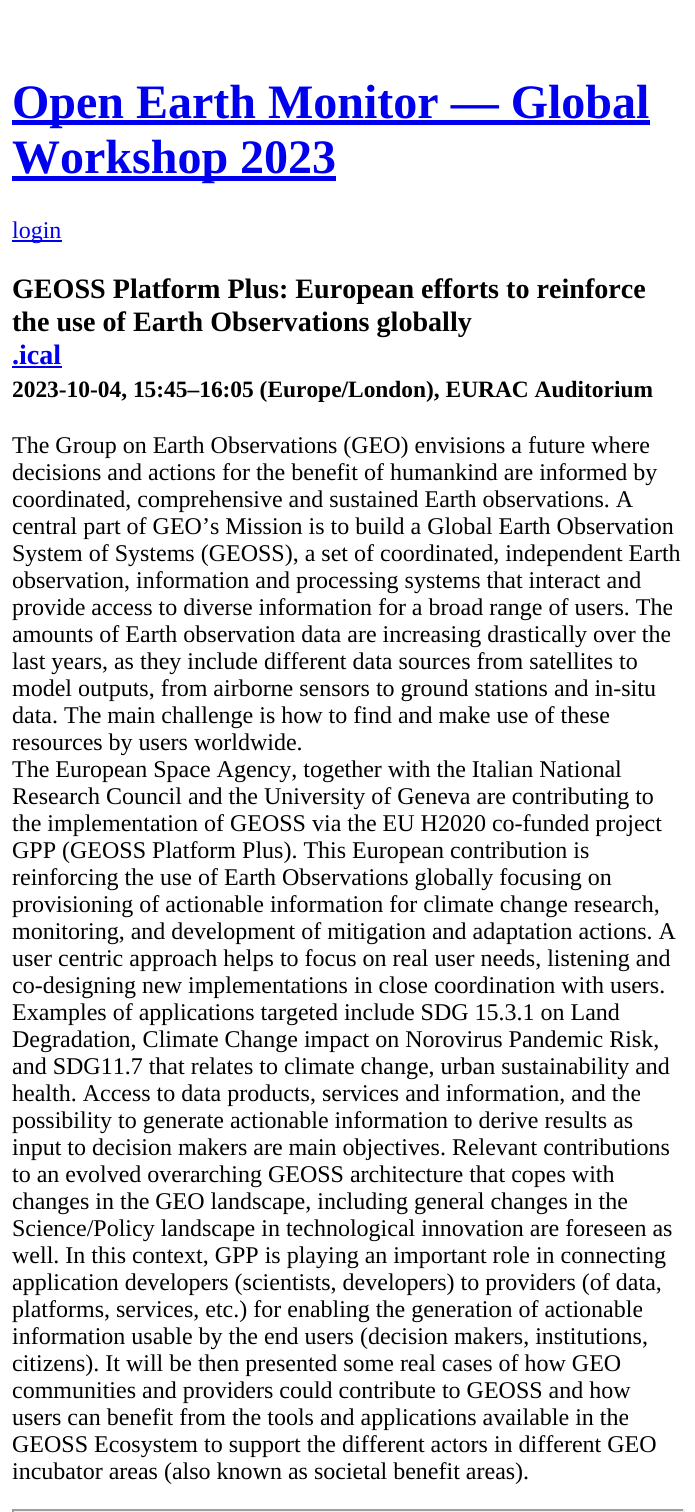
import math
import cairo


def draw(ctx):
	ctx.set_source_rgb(1, 1, 1)
	ctx.paint()
	ctx.set_source_rgb(0, 0, 0.933)
	ctx.rectangle(12, 120, 638, 5)
	ctx.fill()
	ctx.select_font_face('Liberation Serif', cairo.FONT_SLANT_NORMAL, cairo.FONT_WEIGHT_BOLD)
	ctx.set_font_size(48)
	ctx.move_to(12, 118)
	ctx.show_text('Open Earth Monitor — Global')
	ctx.rectangle(12, 176, 324, 5)
	ctx.fill()
	ctx.move_to(12, 173)
	ctx.show_text('Workshop 2023')
	ctx.rectangle(12, 240, 50, 2)
	ctx.fill()
	ctx.select_font_face('Liberation Serif')
	ctx.set_font_size(24)
	ctx.move_to(12, 238)
	ctx.show_text('login')
	ctx.select_font_face('Liberation Serif', cairo.FONT_SLANT_NORMAL, cairo.FONT_WEIGHT_BOLD)
	ctx.set_font_size(28.1)
	ctx.set_source_rgb(0, 0, 0)
	ctx.move_to(12, 298)
	ctx.show_text('GEOSS Platform Plus: European efforts to reinforce')
	ctx.move_to(12, 331)
	ctx.show_text('the use of Earth Observations globally')
	ctx.set_source_rgb(0, 0, 0.933)
	ctx.move_to(12, 364)
	ctx.show_text('.ical')
	ctx.rectangle(12, 366, 50, 2)
	ctx.fill()
	ctx.set_font_size(23.4)
	ctx.set_source_rgb(0, 0, 0)
	ctx.move_to(12, 397)
	ctx.show_text('2023-10-04, 15:45–16:05 (Europe/London), EURAC Auditorium')
	ctx.select_font_face('Liberation Serif')
	ctx.set_font_size(24)
	for x, y, s in [
		(12, 453, 'The Group on Earth Observations (GEO) envisions a future where'),
		(12, 480, 'decisions and actions for the benefit of humankind are informed by'),
		(12, 507, 'coordinated, comprehensive and sustained Earth observations. A'),
		(12, 534, 'central part of GEO’s Mission is to build a Global Earth Observation'),
		(12, 561, 'System of Systems (GEOSS), a set of coordinated, independent Earth'),
		(12, 588, 'observation, information and processing systems that interact and'),
		(12, 615, 'provide access to diverse information for a broad range of users. The'),
		(12, 642, 'amounts of Earth observation data are increasing drastically over the'),
		(12, 669, 'last years, as they include different data sources from satellites to'),
		(12, 696, 'model outputs, from airborne sensors to ground stations and in-situ'),
		(12, 723, 'data. The main challenge is how to find and make use of these'),
		(12, 750, 'resources by users worldwide.'),
		(12, 777, 'The European Space Agency, together with the Italian National'),
		(12, 804, 'Research Council and the University of Geneva are contributing to'),
		(12, 831, 'the implementation of GEOSS via the EU H2020 co-funded project'),
		(12, 858, 'GPP (GEOSS Platform Plus). This European contribution is'),
		(12, 885, 'reinforcing the use of Earth Observations globally focusing on'),
		(12, 912, 'provisioning of actionable information for climate change research,'),
		(12, 939, 'monitoring, and development of mitigation and adaptation actions. A'),
		(12, 966, 'user centric approach helps to focus on real user needs, listening and'),
		(12, 993, 'co-designing new implementations in close coordination with users.'),
		(12, 1020, 'Examples of applications targeted include SDG 15.3.1 on Land'),
		(12, 1047, 'Degradation, Climate Change impact on Norovirus Pandemic Risk,'),
		(12, 1074, 'and SDG11.7 that relates to climate change, urban sustainability and'),
		(12, 1101, 'health. Access to data products, services and information, and the'),
		(12, 1128, 'possibility to generate actionable information to derive results as'),
		(12, 1155, 'input to decision makers are main objectives. Relevant contributions'),
		(12, 1182, 'to an evolved overarching GEOSS architecture that copes with'),
		(12, 1209, 'changes in the GEO landscape, including general changes in the'),
		(12, 1236, 'Science/Policy landscape in technological innovation are foreseen as'),
		(12, 1263, 'well. In this context, GPP is playing an important role in connecting'),
		(12, 1290, 'application developers (scientists, developers) to providers (of data,'),
		(12, 1317, 'platforms, services, etc.) for enabling the generation of actionable'),
		(12, 1344, 'information usable by the end users (decision makers, institutions,'),
		(12, 1371, 'citizens). It will be then presented some real cases of how GEO'),
		(12, 1398, 'communities and providers could contribute to GEOSS and how'),
		(12, 1425, 'users can benefit from the tools and applications available in the'),
		(12, 1452, 'GEOSS Ecosystem to support the different actors in different GEO'),
		(12, 1479, 'incubator areas (also known as societal benefit areas).'),
	]:
		ctx.move_to(x, y)
		ctx.show_text(s)
	ctx.set_source_rgb(0.624, 0.624, 0.624)
	ctx.rectangle(12, 1509, 672, 2)
	ctx.fill()
	ctx.set_source_rgb(0.933, 0.933, 0.933)
	ctx.rectangle(683, 1509, 2, 3)
	ctx.rectangle(12, 1511, 672, 1)
	ctx.fill()
	ctx.set_source_rgb(0.624, 0.624, 0.624)
	ctx.rectangle(12, 1509, 2, 3)
	ctx.fill()


surface = cairo.ImageSurface(cairo.FORMAT_RGB24, 695, 1512)
ctx = cairo.Context(surface)
options = cairo.FontOptions()
options.set_hint_metrics(cairo.HINT_METRICS_OFF)
options.set_hint_style(cairo.HINT_STYLE_NONE)
ctx.set_font_options(options)
ctx.set_miter_limit(4)
draw(ctx)
surface.write_to_png('image.png')
